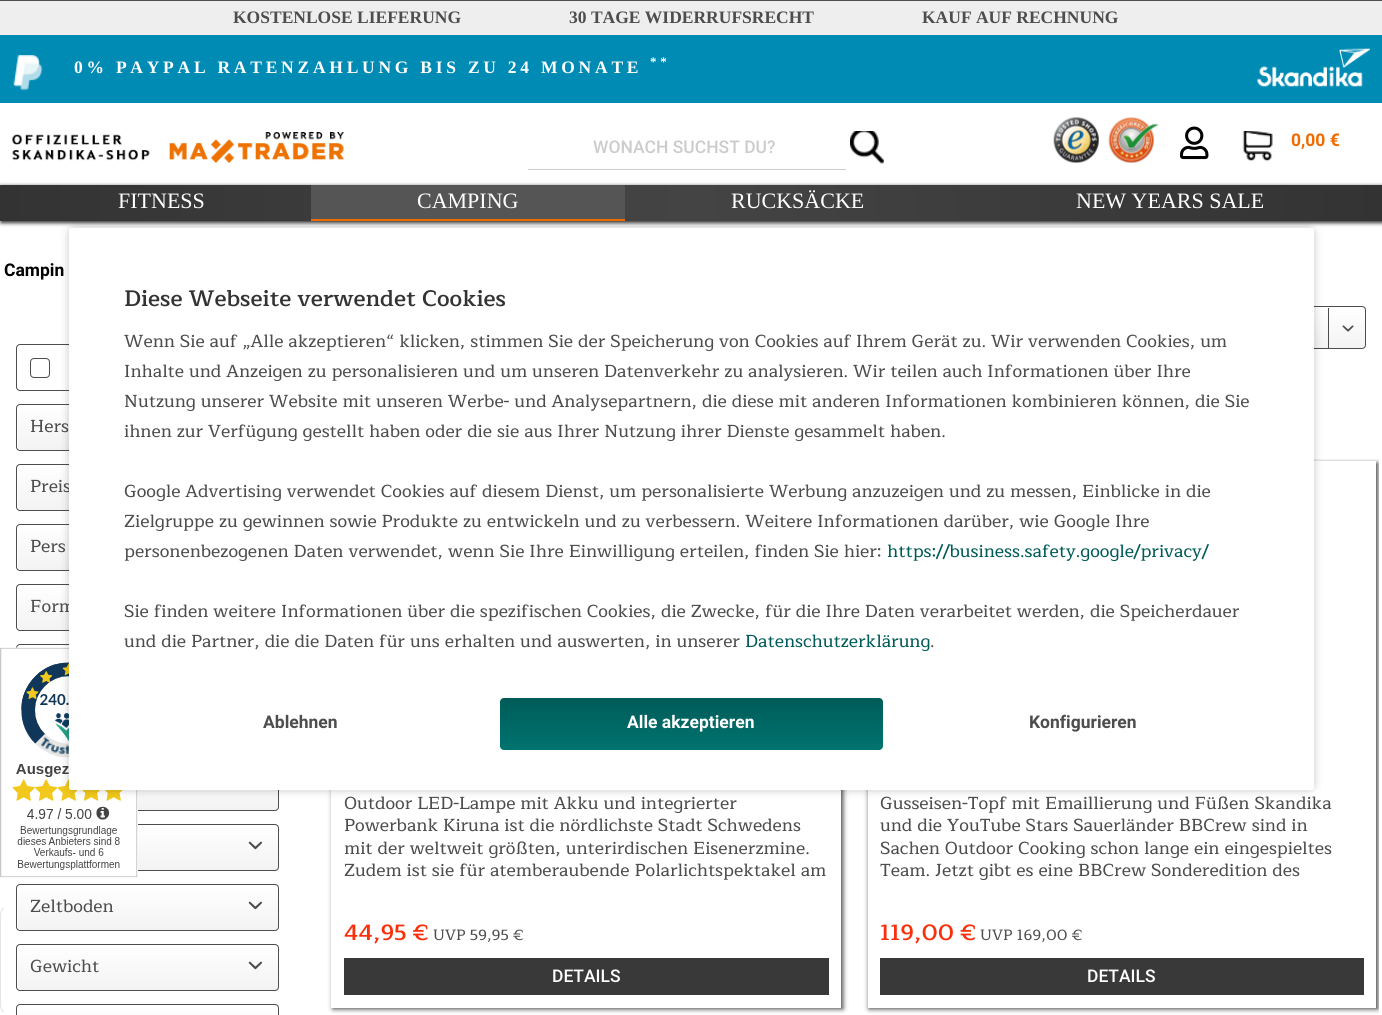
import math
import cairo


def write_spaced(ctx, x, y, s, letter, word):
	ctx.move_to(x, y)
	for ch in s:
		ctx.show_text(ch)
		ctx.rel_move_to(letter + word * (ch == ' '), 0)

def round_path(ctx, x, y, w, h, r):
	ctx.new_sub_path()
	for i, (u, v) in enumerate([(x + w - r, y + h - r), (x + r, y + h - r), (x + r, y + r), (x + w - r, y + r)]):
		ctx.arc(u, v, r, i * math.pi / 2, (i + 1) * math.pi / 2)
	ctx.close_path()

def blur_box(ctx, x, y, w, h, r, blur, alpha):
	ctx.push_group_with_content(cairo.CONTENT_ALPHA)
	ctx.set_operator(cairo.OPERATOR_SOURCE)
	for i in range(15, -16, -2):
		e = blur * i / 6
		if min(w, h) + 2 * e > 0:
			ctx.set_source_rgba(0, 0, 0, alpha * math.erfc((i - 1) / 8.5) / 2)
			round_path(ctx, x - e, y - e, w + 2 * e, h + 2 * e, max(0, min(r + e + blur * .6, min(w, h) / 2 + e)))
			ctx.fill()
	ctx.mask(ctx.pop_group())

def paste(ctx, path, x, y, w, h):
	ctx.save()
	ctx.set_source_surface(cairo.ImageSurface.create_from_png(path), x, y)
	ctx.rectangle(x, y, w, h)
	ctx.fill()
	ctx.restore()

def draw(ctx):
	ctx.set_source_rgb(1, 1, 1)
	ctx.paint()
	ctx.set_source_rgb(0.933, 0.933, 0.933)
	ctx.rectangle(0, 1, 1382, 34)
	ctx.fill()
	ctx.select_font_face('Liberation Serif', cairo.FONT_SLANT_NORMAL, cairo.FONT_WEIGHT_BOLD)
	ctx.set_font_size(17.5)
	ctx.set_source_rgb(0.302, 0.302, 0.302)
	for x, y, s in [
		(233, 23, 'KOSTENLOSE LIEFERUNG'),
		(569, 23, '30 TAGE WIDERRUFSRECHT'),
		(922, 23, 'KAUF AUF RECHNUNG'),
	]:
		ctx.move_to(x, y)
		ctx.show_text(s)
	ctx.set_source_rgb(0, 0.545, 0.71)
	ctx.rectangle(0, 35, 1382, 68)
	ctx.fill()
	paste(ctx, 'media/1.png', 13, 55, 30, 36)
	ctx.set_font_size(13)
	ctx.set_source_rgb(1, 1, 1)
	write_spaced(ctx, 650, 66, '**', 3.75, 0)
	ctx.set_font_size(17.5)
	write_spaced(ctx, 74, 73, '0% PAYPAL RATENZAHLUNG BIS ZU 24 MONATE', 3.75, 0)
	paste(ctx, 'media/2.png', 1257, 48, 113, 39)
	paste(ctx, 'media/3.png', 12, 132, 333, 31)
	ctx.set_source_rgb(0.8, 0.8, 0.8)
	ctx.rectangle(528, 169, 318, 1)
	ctx.fill()
	ctx.select_font_face('Roboto Medium')
	ctx.move_to(593, 153)
	ctx.show_text('WONACH SUCHST DU?')
	paste(ctx, 'media/4.png', 850, 131, 34, 33)
	paste(ctx, 'media/5.png', 1053, 117, 46, 46)
	paste(ctx, 'media/6.png', 1108, 117, 51, 46)
	paste(ctx, 'media/7.png', 1180, 126, 29, 34)
	paste(ctx, 'media/8.png', 1242, 131, 31, 31)
	ctx.select_font_face('Roboto', cairo.FONT_SLANT_NORMAL, cairo.FONT_WEIGHT_BOLD)
	ctx.set_source_rgb(0.945, 0.42, 0)
	ctx.move_to(1291, 146)
	ctx.show_text('0,00 €')
	ctx.set_source_rgb(0.2, 0.2, 0.2)
	blur_box(ctx, 1, 186, 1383, 37, 0, 2, 1)
	gradient = cairo.LinearGradient(0, 203, 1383, 203)
	gradient.add_color_stop_rgba(0, 0.2, 0.2, 0.2, 1)
	gradient.add_color_stop_rgba(0.5, 0.267, 0.267, 0.267, 1)
	gradient.add_color_stop_rgba(1, 0.2, 0.2, 0.2, 1)
	ctx.set_source(gradient)
	ctx.rectangle(0, 185, 1382, 36)
	ctx.fill()
	ctx.select_font_face('Liberation Serif')
	ctx.set_font_size(22)
	ctx.set_source_rgb(1, 1, 1)
	ctx.move_to(118, 208)
	ctx.show_text('FITNESS')
	ctx.set_source_rgb(0.333, 0.333, 0.333)
	ctx.rectangle(311, 185, 314, 34)
	ctx.fill()
	ctx.set_source_rgb(0.945, 0.42, 0)
	ctx.rectangle(311, 219, 314, 2)
	ctx.fill()
	ctx.set_source_rgb(1, 1, 1)
	for x, y, s in [
		(417, 208, 'CAMPING'),
		(731, 208, 'RUCKSÄCKE'),
		(1076, 208, 'NEW YEARS SALE'),
	]:
		ctx.move_to(x, y)
		ctx.show_text(s)
	ctx.select_font_face('Roboto', cairo.FONT_SLANT_NORMAL, cairo.FONT_WEIGHT_BOLD)
	ctx.set_font_size(17.5)
	ctx.set_source_rgb(0, 0, 0)
	ctx.move_to(4, 276)
	ctx.show_text('Campin')
	round_path(ctx, 0.5, 905.5, 224, 109, 9.5)
	ctx.set_source_rgb(0.898, 0.898, 0.898)
	ctx.set_line_width(1)
	ctx.stroke()
	ctx.set_source_rgb(1, 1, 1)
	round_path(ctx, 4, 331, 287, 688, 4)
	ctx.fill()
	round_path(ctx, 16.5, 344.5, 262, 46, 3.5)
	ctx.set_source_rgb(0.302, 0.302, 0.302)
	ctx.stroke()
	round_path(ctx, 30.5, 358.5, 19, 19, 3.5)
	ctx.stroke()
	gradient = cairo.LinearGradient(148, 405, 148, 450)
	gradient.add_color_stop_rgba(0, 1, 1, 1, 1)
	gradient.add_color_stop_rgba(1, 0.953, 0.953, 0.953, 1)
	ctx.set_source(gradient)
	round_path(ctx, 18, 405, 260, 45, 2.5)
	ctx.fill()
	round_path(ctx, 16.5, 404.5, 262, 46, 3.5)
	ctx.set_source_rgb(0.302, 0.302, 0.302)
	ctx.stroke()
	ctx.select_font_face('Maitree Medium')
	ctx.move_to(30, 432)
	ctx.show_text('Hers')
	gradient = cairo.LinearGradient(148, 465, 148, 510)
	gradient.add_color_stop_rgba(0, 1, 1, 1, 1)
	gradient.add_color_stop_rgba(1, 0.953, 0.953, 0.953, 1)
	ctx.set_source(gradient)
	round_path(ctx, 18, 465, 260, 45, 2.5)
	ctx.fill()
	round_path(ctx, 16.5, 464.5, 262, 46, 3.5)
	ctx.set_source_rgb(0.302, 0.302, 0.302)
	ctx.stroke()
	ctx.move_to(30, 492)
	ctx.show_text('Preis')
	gradient = cairo.LinearGradient(148, 525, 148, 570)
	gradient.add_color_stop_rgba(0, 1, 1, 1, 1)
	gradient.add_color_stop_rgba(1, 0.953, 0.953, 0.953, 1)
	ctx.set_source(gradient)
	round_path(ctx, 18, 525, 260, 45, 2.5)
	ctx.fill()
	round_path(ctx, 16.5, 524.5, 262, 46, 3.5)
	ctx.set_source_rgb(0.302, 0.302, 0.302)
	ctx.stroke()
	ctx.move_to(30, 552)
	ctx.show_text('Pers')
	gradient = cairo.LinearGradient(148, 585, 148, 630)
	gradient.add_color_stop_rgba(0, 1, 1, 1, 1)
	gradient.add_color_stop_rgba(1, 0.953, 0.953, 0.953, 1)
	ctx.set_source(gradient)
	round_path(ctx, 18, 585, 260, 45, 2.5)
	ctx.fill()
	round_path(ctx, 16.5, 584.5, 262, 46, 3.5)
	ctx.set_source_rgb(0.302, 0.302, 0.302)
	ctx.stroke()
	ctx.move_to(30, 612)
	ctx.show_text('Form')
	gradient = cairo.LinearGradient(148, 645, 148, 690)
	gradient.add_color_stop_rgba(0, 1, 1, 1, 1)
	gradient.add_color_stop_rgba(1, 0.953, 0.953, 0.953, 1)
	ctx.set_source(gradient)
	round_path(ctx, 18, 645, 260, 45, 2.5)
	ctx.fill()
	round_path(ctx, 16.5, 644.5, 262, 46, 3.5)
	ctx.set_source_rgb(0.302, 0.302, 0.302)
	ctx.stroke()
	gradient = cairo.LinearGradient(148, 765, 148, 810)
	gradient.add_color_stop_rgba(0, 1, 1, 1, 1)
	gradient.add_color_stop_rgba(1, 0.953, 0.953, 0.953, 1)
	ctx.set_source(gradient)
	round_path(ctx, 18, 765, 260, 45, 2.5)
	ctx.fill()
	round_path(ctx, 16.5, 764.5, 262, 46, 3.5)
	ctx.set_source_rgb(0.302, 0.302, 0.302)
	ctx.stroke()
	gradient = cairo.LinearGradient(148, 825, 148, 870)
	gradient.add_color_stop_rgba(0, 1, 1, 1, 1)
	gradient.add_color_stop_rgba(1, 0.953, 0.953, 0.953, 1)
	ctx.set_source(gradient)
	round_path(ctx, 18, 825, 260, 45, 2.5)
	ctx.fill()
	round_path(ctx, 16.5, 824.5, 262, 46, 3.5)
	ctx.set_source_rgb(0.302, 0.302, 0.302)
	ctx.stroke()
	paste(ctx, 'media/9.png', 248, 841, 14, 9)
	gradient = cairo.LinearGradient(148, 885, 148, 930)
	gradient.add_color_stop_rgba(0, 1, 1, 1, 1)
	gradient.add_color_stop_rgba(1, 0.953, 0.953, 0.953, 1)
	ctx.set_source(gradient)
	round_path(ctx, 18, 885, 260, 45, 2.5)
	ctx.fill()
	round_path(ctx, 16.5, 884.5, 262, 46, 3.5)
	ctx.set_source_rgb(0.302, 0.302, 0.302)
	ctx.stroke()
	ctx.move_to(30, 912)
	ctx.show_text('Zeltboden')
	paste(ctx, 'media/9.png', 248, 901, 14, 9)
	gradient = cairo.LinearGradient(148, 945, 148, 990)
	gradient.add_color_stop_rgba(0, 1, 1, 1, 1)
	gradient.add_color_stop_rgba(1, 0.953, 0.953, 0.953, 1)
	ctx.set_source(gradient)
	round_path(ctx, 18, 945, 260, 45, 2.5)
	ctx.fill()
	round_path(ctx, 16.5, 944.5, 262, 46, 3.5)
	ctx.set_source_rgb(0.302, 0.302, 0.302)
	ctx.stroke()
	ctx.move_to(30, 972)
	ctx.show_text('Gewicht')
	paste(ctx, 'media/9.png', 248, 961, 14, 9)
	gradient = cairo.LinearGradient(148, 1005, 148, 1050)
	gradient.add_color_stop_rgba(0, 1, 1, 1, 1)
	gradient.add_color_stop_rgba(1, 0.953, 0.953, 0.953, 1)
	ctx.set_source(gradient)
	round_path(ctx, 18, 1005, 260, 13, 2.5)
	ctx.fill()
	round_path(ctx, 16.5, 1004.5, 262, 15, 3.5)
	ctx.set_source_rgb(0.302, 0.302, 0.302)
	ctx.stroke()
	gradient = cairo.LinearGradient(1241, 308, 1241, 348)
	gradient.add_color_stop_rgba(0, 1, 1, 1, 1)
	gradient.add_color_stop_rgba(1, 0.953, 0.953, 0.953, 1)
	ctx.set_source(gradient)
	round_path(ctx, 1118, 308, 247, 40, 2.5)
	ctx.fill()
	round_path(ctx, 1116.5, 306.5, 249, 42, 3.5)
	ctx.set_source_rgb(0.302, 0.302, 0.302)
	ctx.stroke()
	ctx.rectangle(1328, 308, 1, 41)
	ctx.fill()
	paste(ctx, 'media/10.png', 1342, 325, 12, 7)
	ctx.save()
	ctx.set_fill_rule(cairo.FILL_RULE_EVEN_ODD)
	ctx.new_path()
	ctx.move_to(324, 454)
	ctx.line_to(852, 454)
	ctx.line_to(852, 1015)
	ctx.line_to(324, 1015)
	ctx.close_path()
	ctx.move_to(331, 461)
	ctx.line_to(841, 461)
	ctx.line_to(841, 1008)
	ctx.line_to(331, 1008)
	ctx.close_path()
	ctx.clip()
	ctx.set_source_rgb(0.267, 0.267, 0.267)
	blur_box(ctx, 333, 463, 510, 546, 0, 2.5, 1)
	ctx.restore()
	for x, y, s in [
		(344, 809, 'Outdoor LED-Lampe mit Akku und integrierter'),
		(344, 831, 'Powerbank Kiruna ist die nördlichste Stadt Schwedens'),
		(344, 854, 'mit der weltweit größten, unterirdischen Eisenerzmine.'),
		(344, 876, 'Zudem ist sie für atemberaubende Polarlichtspektakel am'),
	]:
		ctx.move_to(x, y)
		ctx.show_text(s)
	ctx.select_font_face('Maitree SemiBold')
	ctx.set_font_size(22.5)
	ctx.set_source_rgb(0.976, 0.188, 0.047)
	ctx.move_to(344, 940)
	ctx.show_text('44,95 €')
	ctx.select_font_face('Maitree Medium')
	ctx.set_font_size(15)
	ctx.set_source_rgb(0.302, 0.302, 0.302)
	ctx.move_to(433, 940)
	ctx.show_text('UVP 59,95 €')
	ctx.set_source_rgb(0.224, 0.224, 0.224)
	ctx.rectangle(344, 958, 485, 37)
	ctx.fill()
	ctx.select_font_face('Roboto Medium')
	ctx.set_font_size(17.5)
	ctx.set_source_rgb(1, 1, 1)
	ctx.move_to(552, 982)
	ctx.show_text('DETAILS')
	ctx.save()
	ctx.rectangle(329, 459, 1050, 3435)
	ctx.clip()
	ctx.set_fill_rule(cairo.FILL_RULE_EVEN_ODD)
	ctx.new_path()
	ctx.move_to(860, 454)
	ctx.line_to(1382, 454)
	ctx.line_to(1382, 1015)
	ctx.line_to(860, 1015)
	ctx.close_path()
	ctx.move_to(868, 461)
	ctx.line_to(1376, 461)
	ctx.line_to(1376, 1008)
	ctx.line_to(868, 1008)
	ctx.close_path()
	ctx.clip()
	ctx.set_source_rgb(0.267, 0.267, 0.267)
	blur_box(ctx, 869, 463, 509, 546, 0, 2.5, 1)
	ctx.restore()
	ctx.select_font_face('Maitree Medium')
	ctx.set_source_rgb(0.302, 0.302, 0.302)
	for x, y, s in [
		(880, 809, 'Gusseisen-Topf mit Emaillierung und Füßen Skandika'),
		(880, 831, 'und die YouTube Stars Sauerländer BBCrew sind in'),
		(880, 854, 'Sachen Outdoor Cooking schon lange ein eingespieltes'),
		(880, 876, 'Team. Jetzt gibt es eine BBCrew Sonderedition des'),
	]:
		ctx.move_to(x, y)
		ctx.show_text(s)
	ctx.select_font_face('Maitree SemiBold')
	ctx.set_font_size(22.5)
	ctx.set_source_rgb(0.976, 0.188, 0.047)
	ctx.move_to(880, 940)
	ctx.show_text('119,00 €')
	ctx.select_font_face('Maitree Medium')
	ctx.set_font_size(15)
	ctx.set_source_rgb(0.302, 0.302, 0.302)
	ctx.move_to(980, 940)
	ctx.show_text('UVP 169,00 €')
	ctx.set_source_rgb(0.224, 0.224, 0.224)
	ctx.rectangle(880, 958, 484, 37)
	ctx.fill()
	ctx.select_font_face('Roboto Medium')
	ctx.set_font_size(17.5)
	ctx.set_source_rgb(1, 1, 1)
	ctx.move_to(1087, 982)
	ctx.show_text('DETAILS')
	ctx.set_source_rgb(0.302, 0.302, 0.302)
	ctx.rectangle(0, 0, 1382, 1)
	ctx.fill()
	paste(ctx, 'media/11.png', 0, 647, 138, 231)
	ctx.set_source_rgb(0, 0, 0)
	blur_box(ctx, 74, 233, 1235, 552, 0, 6, 0.6)
	ctx.set_source_rgb(1, 1, 1)
	round_path(ctx, 69, 228, 1245, 562, 2.5)
	ctx.fill()
	ctx.select_font_face('Maitree SemiBold')
	ctx.set_font_size(22.5)
	ctx.set_source_rgb(0.2, 0.2, 0.2)
	ctx.move_to(124, 306)
	ctx.show_text('Diese Webseite verwendet Cookies')
	ctx.select_font_face('Maitree Medium')
	ctx.set_font_size(17.5)
	ctx.set_source_rgb(0.302, 0.302, 0.302)
	for x, y, s in [
		(124, 347, 'Wenn Sie auf „Alle akzeptieren“ klicken, stimmen Sie der Speicherung von Cookies auf Ihrem Gerät zu. Wir verwenden Cookies, um'),
		(124, 377, 'Inhalte und Anzeigen zu personalisieren und um unseren Datenverkehr zu analysieren. Wir teilen auch Informationen über Ihre'),
		(124, 407, 'Nutzung unserer Website mit unseren Werbe- und Analysepartnern, die diese mit anderen Informationen kombinieren können, die Sie'),
		(124, 437, 'ihnen zur Verfügung gestellt haben oder die sie aus Ihrer Nutzung ihrer Dienste gesammelt haben.'),
		(124, 497, 'Google Advertising verwendet Cookies auf diesem Dienst, um personalisierte Werbung anzuzeigen und zu messen, Einblicke in die'),
		(124, 527, 'Zielgruppe zu gewinnen sowie Produkte zu entwickeln und zu verbessern. Weitere Informationen darüber, wie Google Ihre'),
		(124, 557, 'personenbezogenen Daten verwendet, wenn Sie Ihre Einwilligung erteilen, finden Sie hier:'),
	]:
		ctx.move_to(x, y)
		ctx.show_text(s)
	ctx.set_source_rgb(0, 0.357, 0.345)
	ctx.move_to(887, 557)
	ctx.show_text('https://business.safety.google/privacy/')
	ctx.set_source_rgb(0.302, 0.302, 0.302)
	ctx.move_to(124, 617)
	ctx.show_text('Sie finden weitere Informationen über die spezifischen Cookies, die Zwecke, für die Ihre Daten verarbeitet werden, die Speicherdauer')
	ctx.move_to(124, 647)
	ctx.show_text('und die Partner, die die Daten für uns erhalten und auswerten, in unserer')
	ctx.set_source_rgb(0, 0.357, 0.345)
	ctx.move_to(745, 647)
	ctx.show_text('Datenschutzerklärung')
	ctx.set_source_rgb(0.302, 0.302, 0.302)
	ctx.move_to(930, 647)
	ctx.show_text('.')
	ctx.select_font_face('Roboto', cairo.FONT_SLANT_NORMAL, cairo.FONT_WEIGHT_BOLD)
	ctx.move_to(263, 728)
	ctx.show_text('Ablehnen')
	gradient = cairo.LinearGradient(691, 698, 691, 750)
	gradient.add_color_stop_rgba(0, 0, 0.357, 0.345, 1)
	gradient.add_color_stop_rgba(1, 0, 0.455, 0.439, 1)
	ctx.set_source(gradient)
	round_path(ctx, 500, 698, 383, 52, 4)
	ctx.fill()
	ctx.set_source_rgb(1, 1, 1)
	ctx.move_to(627, 728)
	ctx.show_text('Alle akzeptieren')
	ctx.set_source_rgb(0.302, 0.302, 0.302)
	ctx.move_to(1029, 728)
	ctx.show_text('Konfigurieren')


surface = cairo.ImageSurface(cairo.FORMAT_RGB24, 1382, 1015)
ctx = cairo.Context(surface)
options = cairo.FontOptions()
options.set_hint_metrics(cairo.HINT_METRICS_OFF)
options.set_hint_style(cairo.HINT_STYLE_NONE)
ctx.set_font_options(options)
ctx.set_miter_limit(4)
draw(ctx)
surface.write_to_png('image.png')
